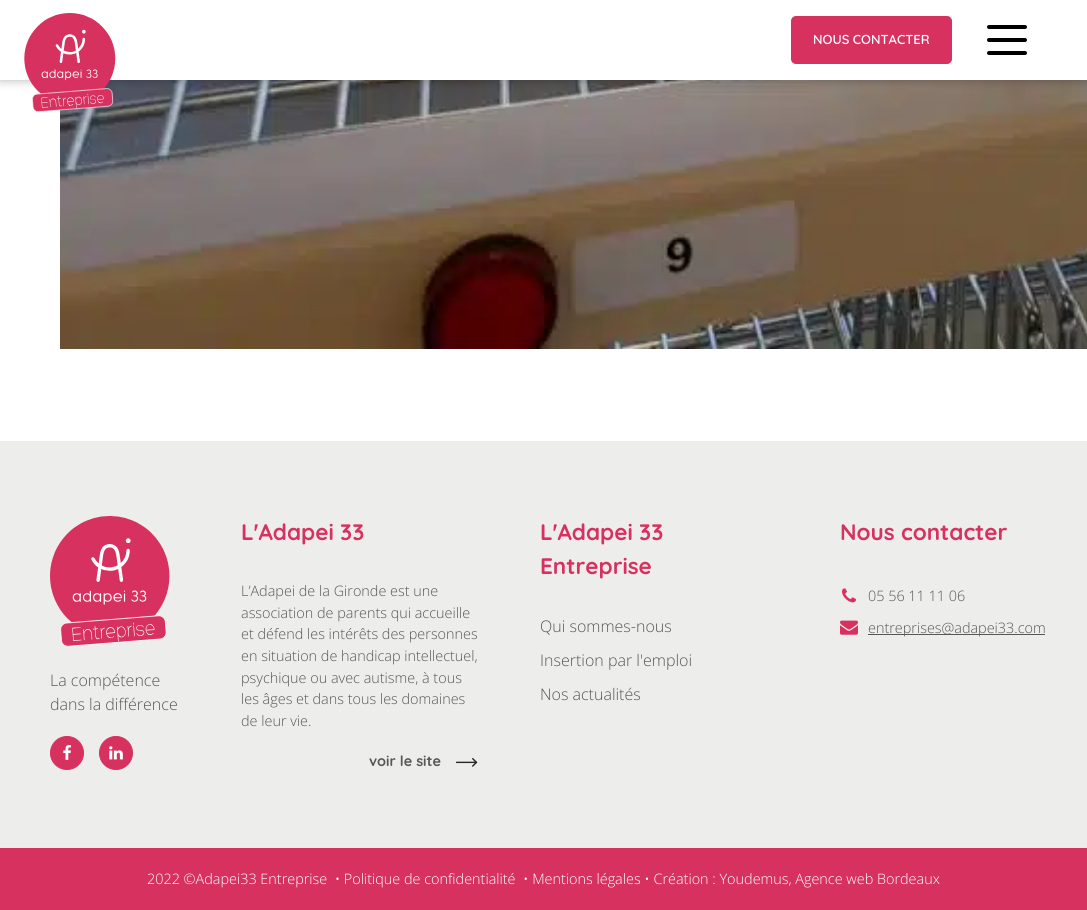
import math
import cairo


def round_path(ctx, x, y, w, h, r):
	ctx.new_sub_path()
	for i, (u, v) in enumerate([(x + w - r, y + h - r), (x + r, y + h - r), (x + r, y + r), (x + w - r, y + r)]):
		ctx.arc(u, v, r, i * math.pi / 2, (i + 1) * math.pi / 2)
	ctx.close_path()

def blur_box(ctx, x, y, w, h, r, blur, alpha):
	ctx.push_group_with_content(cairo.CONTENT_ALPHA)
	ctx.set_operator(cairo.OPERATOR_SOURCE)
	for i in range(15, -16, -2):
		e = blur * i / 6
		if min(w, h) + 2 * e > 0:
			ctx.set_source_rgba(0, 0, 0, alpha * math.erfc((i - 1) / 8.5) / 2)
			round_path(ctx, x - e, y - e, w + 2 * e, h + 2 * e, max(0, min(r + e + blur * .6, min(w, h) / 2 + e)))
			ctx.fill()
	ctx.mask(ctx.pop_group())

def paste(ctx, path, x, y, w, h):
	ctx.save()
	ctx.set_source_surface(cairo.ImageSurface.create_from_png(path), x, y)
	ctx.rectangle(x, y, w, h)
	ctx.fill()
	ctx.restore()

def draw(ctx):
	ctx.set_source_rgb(1, 1, 1)
	ctx.paint()
	paste(ctx, 'media/2.png', 60, 80, 1027, 269)
	ctx.set_source_rgb(0, 0, 0)
	blur_box(ctx, 0, 0, 1087, 80, 0, 5, 0.3)
	ctx.set_source_rgb(1, 1, 1)
	ctx.rectangle(0, 0, 1087, 80)
	ctx.fill()
	paste(ctx, 'media/1.png', 24, 13, 92, 99)
	ctx.set_source_rgb(0.839, 0.192, 0.373)
	round_path(ctx, 792, 17, 159, 46, 4)
	ctx.fill_preserve()
	ctx.stroke()
	ctx.select_font_face('Quicksand SemiBold')
	ctx.set_font_size(13)
	ctx.set_source_rgb(1, 1, 1)
	ctx.move_to(813, 44)
	ctx.show_text('NOUS CONTACTER')
	ctx.set_source_rgb(0, 0, 0)
	round_path(ctx, 987, 25, 40, 4, 2)
	ctx.fill()
	round_path(ctx, 987, 38, 40, 4, 2)
	ctx.fill()
	round_path(ctx, 987, 51, 40, 4, 2)
	ctx.fill()
	ctx.set_source_rgb(0.929, 0.929, 0.925)
	ctx.rectangle(0, 441, 1087, 407)
	ctx.fill()
	ctx.select_font_face('Quicksand', cairo.FONT_SLANT_NORMAL, cairo.FONT_WEIGHT_BOLD)
	ctx.set_font_size(22.5)
	ctx.set_source_rgb(0.839, 0.192, 0.373)
	ctx.move_to(241, 540)
	ctx.show_text('L\'Adapei 33')
	ctx.select_font_face('Open Sans Light')
	ctx.set_font_size(14.4)
	ctx.set_source_rgb(0.341, 0.341, 0.337)
	for x, y, s in [
		(241, 596, 'L’Adapei de la Gironde est une'),
		(241, 618, 'association de parents qui accueille'),
		(241, 639, 'et défend les intérêts des personnes'),
		(241, 661, 'en situation de handicap intellectuel,'),
		(241, 683, 'psychique ou avec autisme, à tous'),
		(241, 704, 'les âges et dans tous les domaines'),
		(241, 726, 'de leur vie.'),
	]:
		ctx.move_to(x, y)
		ctx.show_text(s)
	ctx.select_font_face('Quicksand', cairo.FONT_SLANT_NORMAL, cairo.FONT_WEIGHT_BOLD)
	ctx.move_to(369, 766)
	ctx.show_text('voir le site')
	paste(ctx, 'media/3.png', 456, 758, 22, 9)
	ctx.set_font_size(22.5)
	ctx.set_source_rgb(0.839, 0.192, 0.373)
	ctx.move_to(540, 540)
	ctx.show_text('L\'Adapei 33')
	ctx.move_to(540, 574)
	ctx.show_text('Entreprise')
	ctx.select_font_face('Open Sans Light')
	ctx.set_font_size(16)
	ctx.set_source_rgb(0.341, 0.341, 0.337)
	for x, y, s in [
		(540, 632, 'Qui sommes-nous'),
		(540, 666, 'Insertion par l\'emploi'),
		(540, 700, 'Nos actualités'),
	]:
		ctx.move_to(x, y)
		ctx.show_text(s)
	ctx.select_font_face('Quicksand', cairo.FONT_SLANT_NORMAL, cairo.FONT_WEIGHT_BOLD)
	ctx.set_font_size(22.5)
	ctx.set_source_rgb(0.839, 0.192, 0.373)
	ctx.move_to(840, 540)
	ctx.show_text('Nous contacter')
	paste(ctx, 'media/4.png', 841, 588, 16, 15)
	ctx.select_font_face('Open Sans Light')
	ctx.set_font_size(14.4)
	ctx.set_source_rgb(0.341, 0.341, 0.337)
	ctx.move_to(868, 601)
	ctx.show_text('05 56 11 11 06')
	paste(ctx, 'media/5.png', 840, 620, 18, 15)
	ctx.rectangle(868, 634, 177, 1)
	ctx.fill()
	ctx.move_to(868, 633)
	ctx.show_text('entreprises@adapei33.com')
	paste(ctx, 'media/6.png', 50, 516, 120, 131)
	ctx.set_font_size(16)
	ctx.move_to(50, 686)
	ctx.show_text('La compétence')
	ctx.move_to(50, 710)
	ctx.show_text('dans la différence')
	ctx.set_source_rgb(0.839, 0.192, 0.373)
	ctx.new_path()
	ctx.arc(67, 753, 16.5, 0, 2 * math.pi)
	ctx.fill_preserve()
	ctx.set_line_width(1)
	ctx.stroke()
	paste(ctx, 'media/7.png', 63, 745, 8, 15)
	ctx.arc(116, 753, 16.5, 0, 2 * math.pi)
	ctx.fill_preserve()
	ctx.stroke()
	paste(ctx, 'media/8.png', 109, 746, 14, 14)
	ctx.rectangle(0, 848, 1087, 62)
	ctx.fill()
	ctx.set_font_size(14.4)
	ctx.set_source_rgb(1, 1, 1)
	ctx.move_to(147, 884)
	ctx.show_text('2022 ©Adapei33 Entreprise  • Politique de confidentialité')
	ctx.move_to(523, 884)
	ctx.show_text('• Mentions légales • Création : Youdemus, Agence web Bordeaux')


surface = cairo.ImageSurface(cairo.FORMAT_RGB24, 1087, 910)
ctx = cairo.Context(surface)
options = cairo.FontOptions()
options.set_hint_metrics(cairo.HINT_METRICS_OFF)
options.set_hint_style(cairo.HINT_STYLE_NONE)
ctx.set_font_options(options)
ctx.set_miter_limit(4)
draw(ctx)
surface.write_to_png('image.png')
